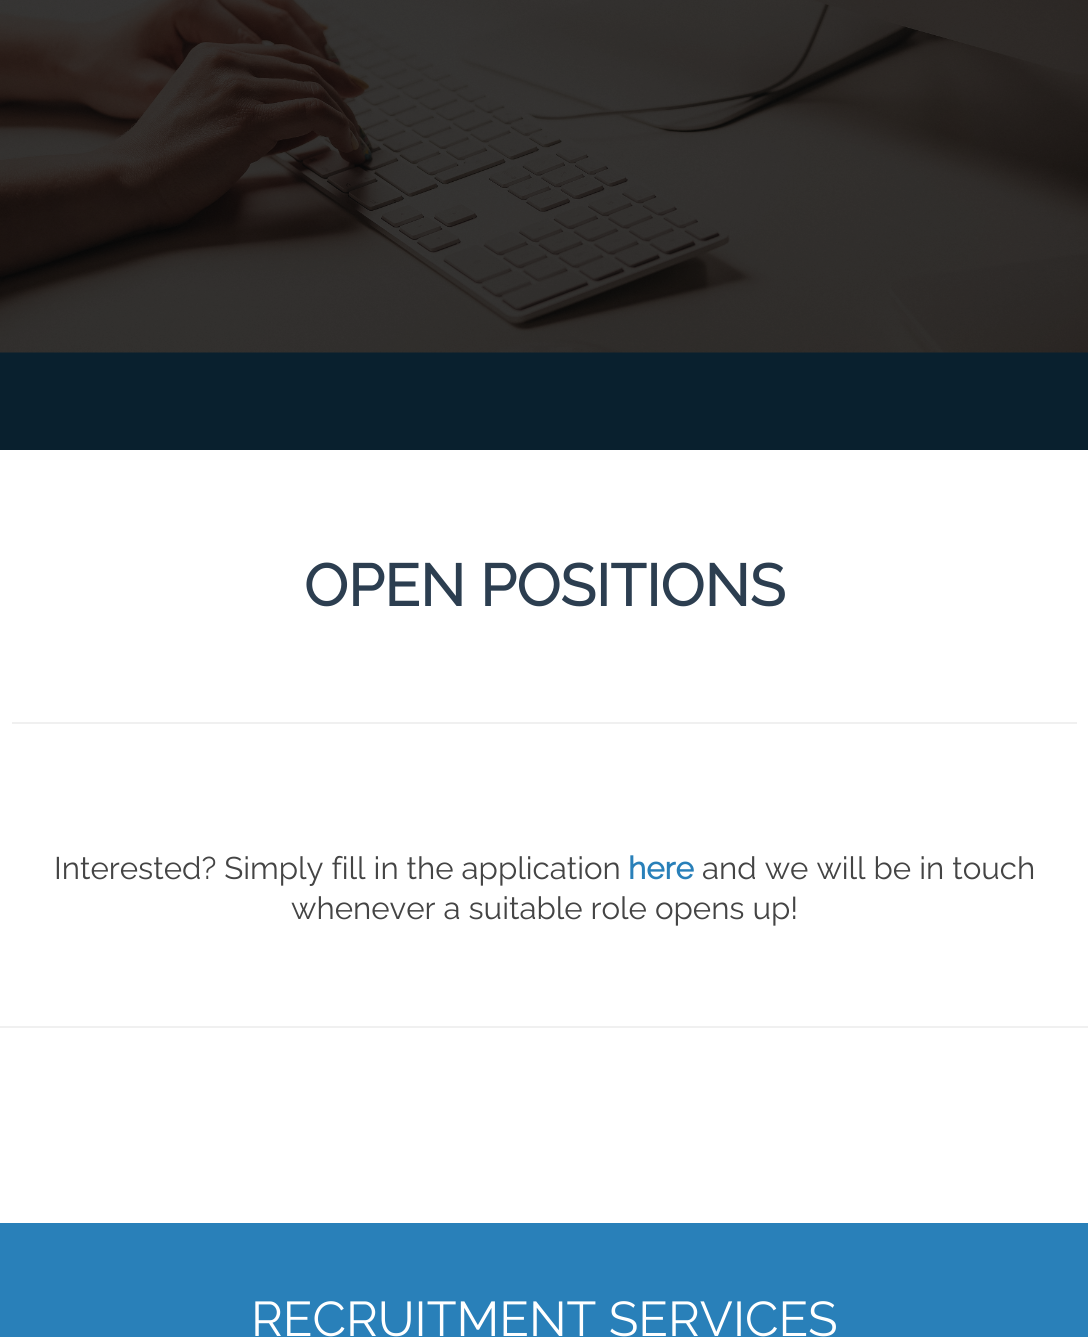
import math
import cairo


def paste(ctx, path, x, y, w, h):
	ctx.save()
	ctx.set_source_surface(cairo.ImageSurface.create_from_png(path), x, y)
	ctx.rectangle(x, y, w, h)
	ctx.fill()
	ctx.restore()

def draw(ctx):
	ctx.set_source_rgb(0.161, 0.502, 0.725)
	ctx.paint()
	ctx.set_source_rgb(0.039, 0.125, 0.18)
	ctx.rectangle(0, 352, 1088, 98)
	ctx.fill()
	paste(ctx, 'media/1.png', 0, 0, 1088, 353)
	ctx.set_source_rgb(1, 1, 1)
	ctx.rectangle(0, 450, 1088, 576)
	ctx.fill()
	ctx.set_source_rgb(0.941, 0.941, 0.941)
	ctx.rectangle(0, 1026, 1088, 2)
	ctx.rectangle(12, 722, 1065, 2)
	ctx.fill()
	ctx.select_font_face('Raleway', cairo.FONT_SLANT_NORMAL, cairo.FONT_WEIGHT_BOLD)
	ctx.set_font_size(58.5)
	ctx.set_source_rgb(0.173, 0.243, 0.314)
	ctx.move_to(304, 606)
	ctx.show_text('OPEN POSITIONS')
	ctx.select_font_face('Raleway Thin')
	ctx.set_font_size(31.25)
	ctx.set_source_rgb(0.267, 0.267, 0.267)
	ctx.move_to(54, 879)
	ctx.show_text('Interested? Simply fill in the application')
	ctx.select_font_face('Raleway', cairo.FONT_SLANT_NORMAL, cairo.FONT_WEIGHT_BOLD)
	ctx.set_source_rgb(0.161, 0.502, 0.725)
	ctx.move_to(628, 879)
	ctx.show_text('here')
	ctx.select_font_face('Raleway Thin')
	ctx.set_source_rgb(0.267, 0.267, 0.267)
	ctx.move_to(702, 879)
	ctx.show_text('and we will be in touch')
	ctx.move_to(291, 919)
	ctx.show_text('whenever a suitable role opens up!')
	ctx.set_source_rgb(1, 1, 1)
	ctx.rectangle(0, 1028, 1088, 195)
	ctx.fill()
	ctx.set_font_size(48.75)
	ctx.move_to(251, 1336)
	ctx.show_text('RECRUITMENT SERVICES')


surface = cairo.ImageSurface(cairo.FORMAT_RGB24, 1088, 1337)
ctx = cairo.Context(surface)
options = cairo.FontOptions()
options.set_hint_metrics(cairo.HINT_METRICS_OFF)
options.set_hint_style(cairo.HINT_STYLE_NONE)
ctx.set_font_options(options)
ctx.set_miter_limit(4)
draw(ctx)
surface.write_to_png('image.png')
